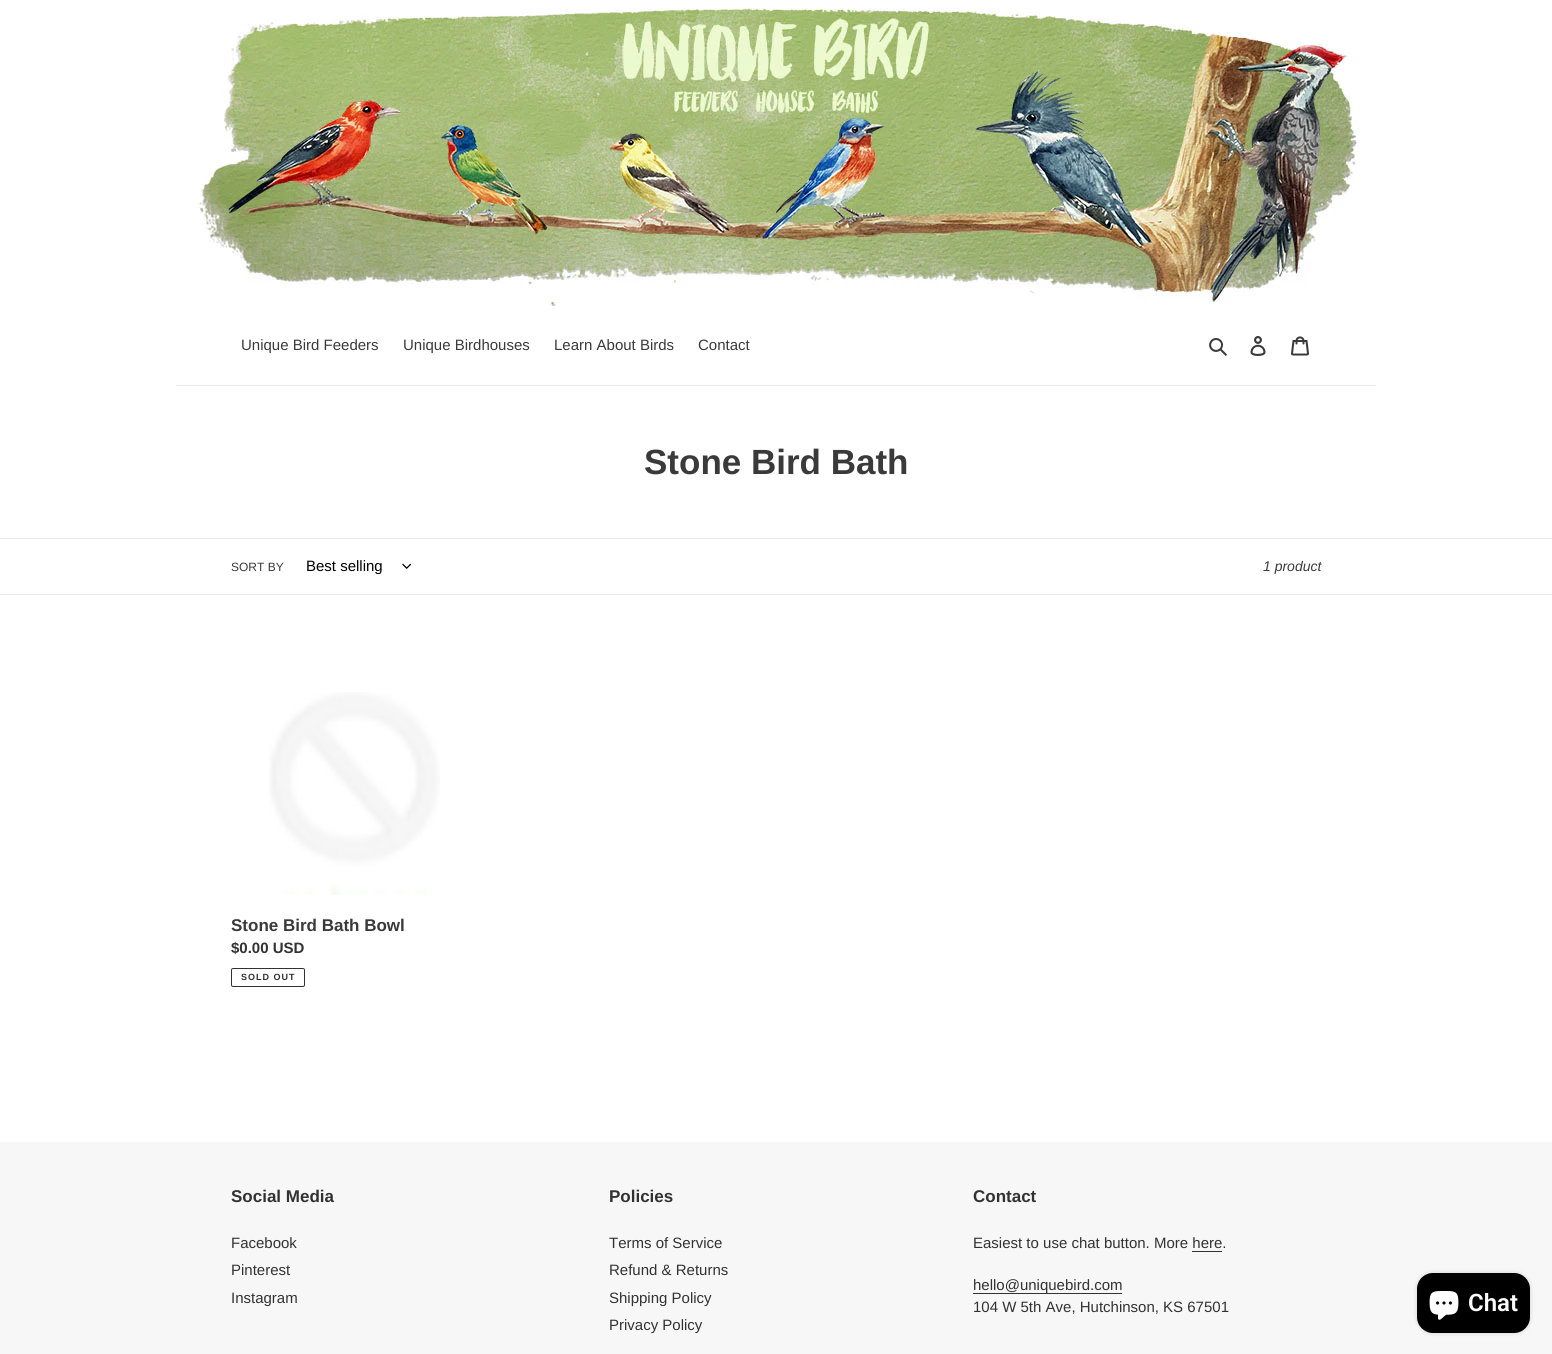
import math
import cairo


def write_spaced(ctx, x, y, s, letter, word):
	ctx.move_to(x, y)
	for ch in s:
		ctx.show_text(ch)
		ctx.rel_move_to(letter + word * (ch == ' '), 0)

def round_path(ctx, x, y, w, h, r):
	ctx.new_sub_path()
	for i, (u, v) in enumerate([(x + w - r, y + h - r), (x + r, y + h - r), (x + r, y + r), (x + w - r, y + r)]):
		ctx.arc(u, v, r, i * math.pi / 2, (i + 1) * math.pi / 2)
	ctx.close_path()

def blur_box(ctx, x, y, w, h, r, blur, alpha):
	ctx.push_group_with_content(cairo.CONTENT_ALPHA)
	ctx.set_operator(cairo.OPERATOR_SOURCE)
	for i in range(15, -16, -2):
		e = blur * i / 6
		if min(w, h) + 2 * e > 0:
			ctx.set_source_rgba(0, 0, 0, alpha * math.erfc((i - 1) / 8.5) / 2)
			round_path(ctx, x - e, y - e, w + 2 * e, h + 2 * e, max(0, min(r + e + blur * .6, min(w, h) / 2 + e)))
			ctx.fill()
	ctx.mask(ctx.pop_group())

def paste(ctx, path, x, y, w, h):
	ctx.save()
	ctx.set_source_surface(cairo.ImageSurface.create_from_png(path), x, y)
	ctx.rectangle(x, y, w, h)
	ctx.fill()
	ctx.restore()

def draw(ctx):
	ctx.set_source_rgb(1, 1, 1)
	ctx.paint()
	paste(ctx, 'media/1.png', 198, 8, 1162, 298)
	ctx.set_source_rgb(0.922, 0.922, 0.922)
	ctx.rectangle(176, 385, 1200, 1)
	ctx.fill()
	ctx.select_font_face('Liberation Sans')
	ctx.set_font_size(15)
	ctx.set_source_rgb(0.227, 0.227, 0.227)
	for x, y, s in [
		(241, 350, 'Unique Bird Feeders'),
		(403, 350, 'Unique Birdhouses'),
		(554, 350, 'Learn About Birds'),
		(698, 350, 'Contact'),
	]:
		ctx.move_to(x, y)
		ctx.show_text(s)
	paste(ctx, 'media/2.png', 1209, 338, 18, 18)
	paste(ctx, 'media/3.png', 1250, 336, 16, 20)
	paste(ctx, 'media/4.png', 1291, 336, 18, 20)
	ctx.select_font_face('Liberation Sans', cairo.FONT_SLANT_NORMAL, cairo.FONT_WEIGHT_BOLD)
	ctx.set_font_size(35)
	ctx.move_to(644, 474)
	ctx.show_text('Stone Bird Bath')
	ctx.set_source_rgb(0.922, 0.922, 0.922)
	ctx.rectangle(0, 538, 1552, 1)
	ctx.fill()
	ctx.rectangle(0, 594, 1552, 1)
	ctx.fill()
	ctx.select_font_face('Liberation Sans')
	ctx.set_font_size(12)
	ctx.set_source_rgb(0.227, 0.227, 0.227)
	ctx.move_to(231, 571)
	ctx.show_text('SORT BY')
	ctx.set_font_size(15)
	ctx.set_source_rgb(0, 0, 0)
	ctx.move_to(306, 571)
	ctx.show_text('Best selling')
	paste(ctx, 'media/5.png', 402, 563, 9, 6)
	ctx.select_font_face('Liberation Sans', cairo.FONT_SLANT_ITALIC)
	ctx.set_font_size(14)
	ctx.set_source_rgb(0.227, 0.227, 0.227)
	ctx.move_to(1263, 571)
	ctx.show_text('1 product')
	paste(ctx, 'media/6.png', 269, 692, 171, 203)
	ctx.select_font_face('Liberation Sans', cairo.FONT_SLANT_NORMAL, cairo.FONT_WEIGHT_BOLD)
	ctx.set_font_size(17)
	ctx.move_to(231, 931)
	ctx.show_text('Stone Bird Bath Bowl')
	ctx.set_font_size(15)
	ctx.set_source_rgb(0.2, 0.196, 0.196)
	ctx.move_to(231, 953)
	ctx.show_text('$0.00 USD')
	round_path(ctx, 231.5, 968.5, 73, 18, 1.5)
	ctx.set_line_width(1)
	ctx.stroke()
	ctx.set_font_size(9)
	write_spaced(ctx, 241, 980, 'SOLD OUT', 1, 0)
	ctx.set_source_rgb(0.965, 0.965, 0.965)
	ctx.rectangle(0, 1142, 1552, 212)
	ctx.fill()
	ctx.set_font_size(17)
	ctx.set_source_rgb(0.2, 0.196, 0.196)
	ctx.move_to(231, 1202)
	ctx.show_text('Social Media')
	ctx.select_font_face('Liberation Sans')
	ctx.set_font_size(15)
	for x, y, s in [
		(231, 1248, 'Facebook'),
		(231, 1275, 'Pinterest'),
		(231, 1303, 'Instagram'),
	]:
		ctx.move_to(x, y)
		ctx.show_text(s)
	ctx.select_font_face('Liberation Sans', cairo.FONT_SLANT_NORMAL, cairo.FONT_WEIGHT_BOLD)
	ctx.set_font_size(17)
	ctx.move_to(609, 1202)
	ctx.show_text('Policies')
	ctx.select_font_face('Liberation Sans')
	ctx.set_font_size(15)
	for x, y, s in [
		(609, 1248, 'Terms of Service'),
		(609, 1275, 'Refund & Returns'),
		(609, 1303, 'Shipping Policy'),
		(609, 1330, 'Privacy Policy'),
	]:
		ctx.move_to(x, y)
		ctx.show_text(s)
	ctx.select_font_face('Liberation Sans', cairo.FONT_SLANT_NORMAL, cairo.FONT_WEIGHT_BOLD)
	ctx.set_font_size(17)
	ctx.move_to(973, 1202)
	ctx.show_text('Contact')
	ctx.select_font_face('Liberation Sans')
	ctx.set_font_size(15)
	ctx.move_to(973, 1248)
	ctx.show_text('Easiest to use chat button. More here.')
	ctx.rectangle(1192, 1251, 30, 1)
	ctx.fill()
	ctx.rectangle(973, 1293, 149, 1)
	ctx.fill()
	ctx.move_to(973, 1290)
	ctx.show_text('hello@uniquebird.com')
	ctx.move_to(973, 1312)
	ctx.show_text('104 W 5th Ave, Hutchinson, KS 67501')
	ctx.set_source_rgb(0, 0, 0)
	blur_box(ctx, 1417, 1273, 113, 60, 16, 2.5, 0.15)
	ctx.set_source_rgb(0, 0, 0)
	round_path(ctx, 1417, 1273, 113, 60, 16)
	ctx.fill()
	paste(ctx, 'media/7.png', 1429, 1291, 30, 29)
	ctx.select_font_face('Roboto SemiBold')
	ctx.set_font_size(24)
	ctx.set_source_rgb(1, 1, 1)
	ctx.move_to(1468, 1311)
	ctx.show_text('Chat')


surface = cairo.ImageSurface(cairo.FORMAT_RGB24, 1552, 1354)
ctx = cairo.Context(surface)
options = cairo.FontOptions()
options.set_hint_metrics(cairo.HINT_METRICS_OFF)
options.set_hint_style(cairo.HINT_STYLE_NONE)
ctx.set_font_options(options)
ctx.set_miter_limit(4)
draw(ctx)
surface.write_to_png('image.png')
